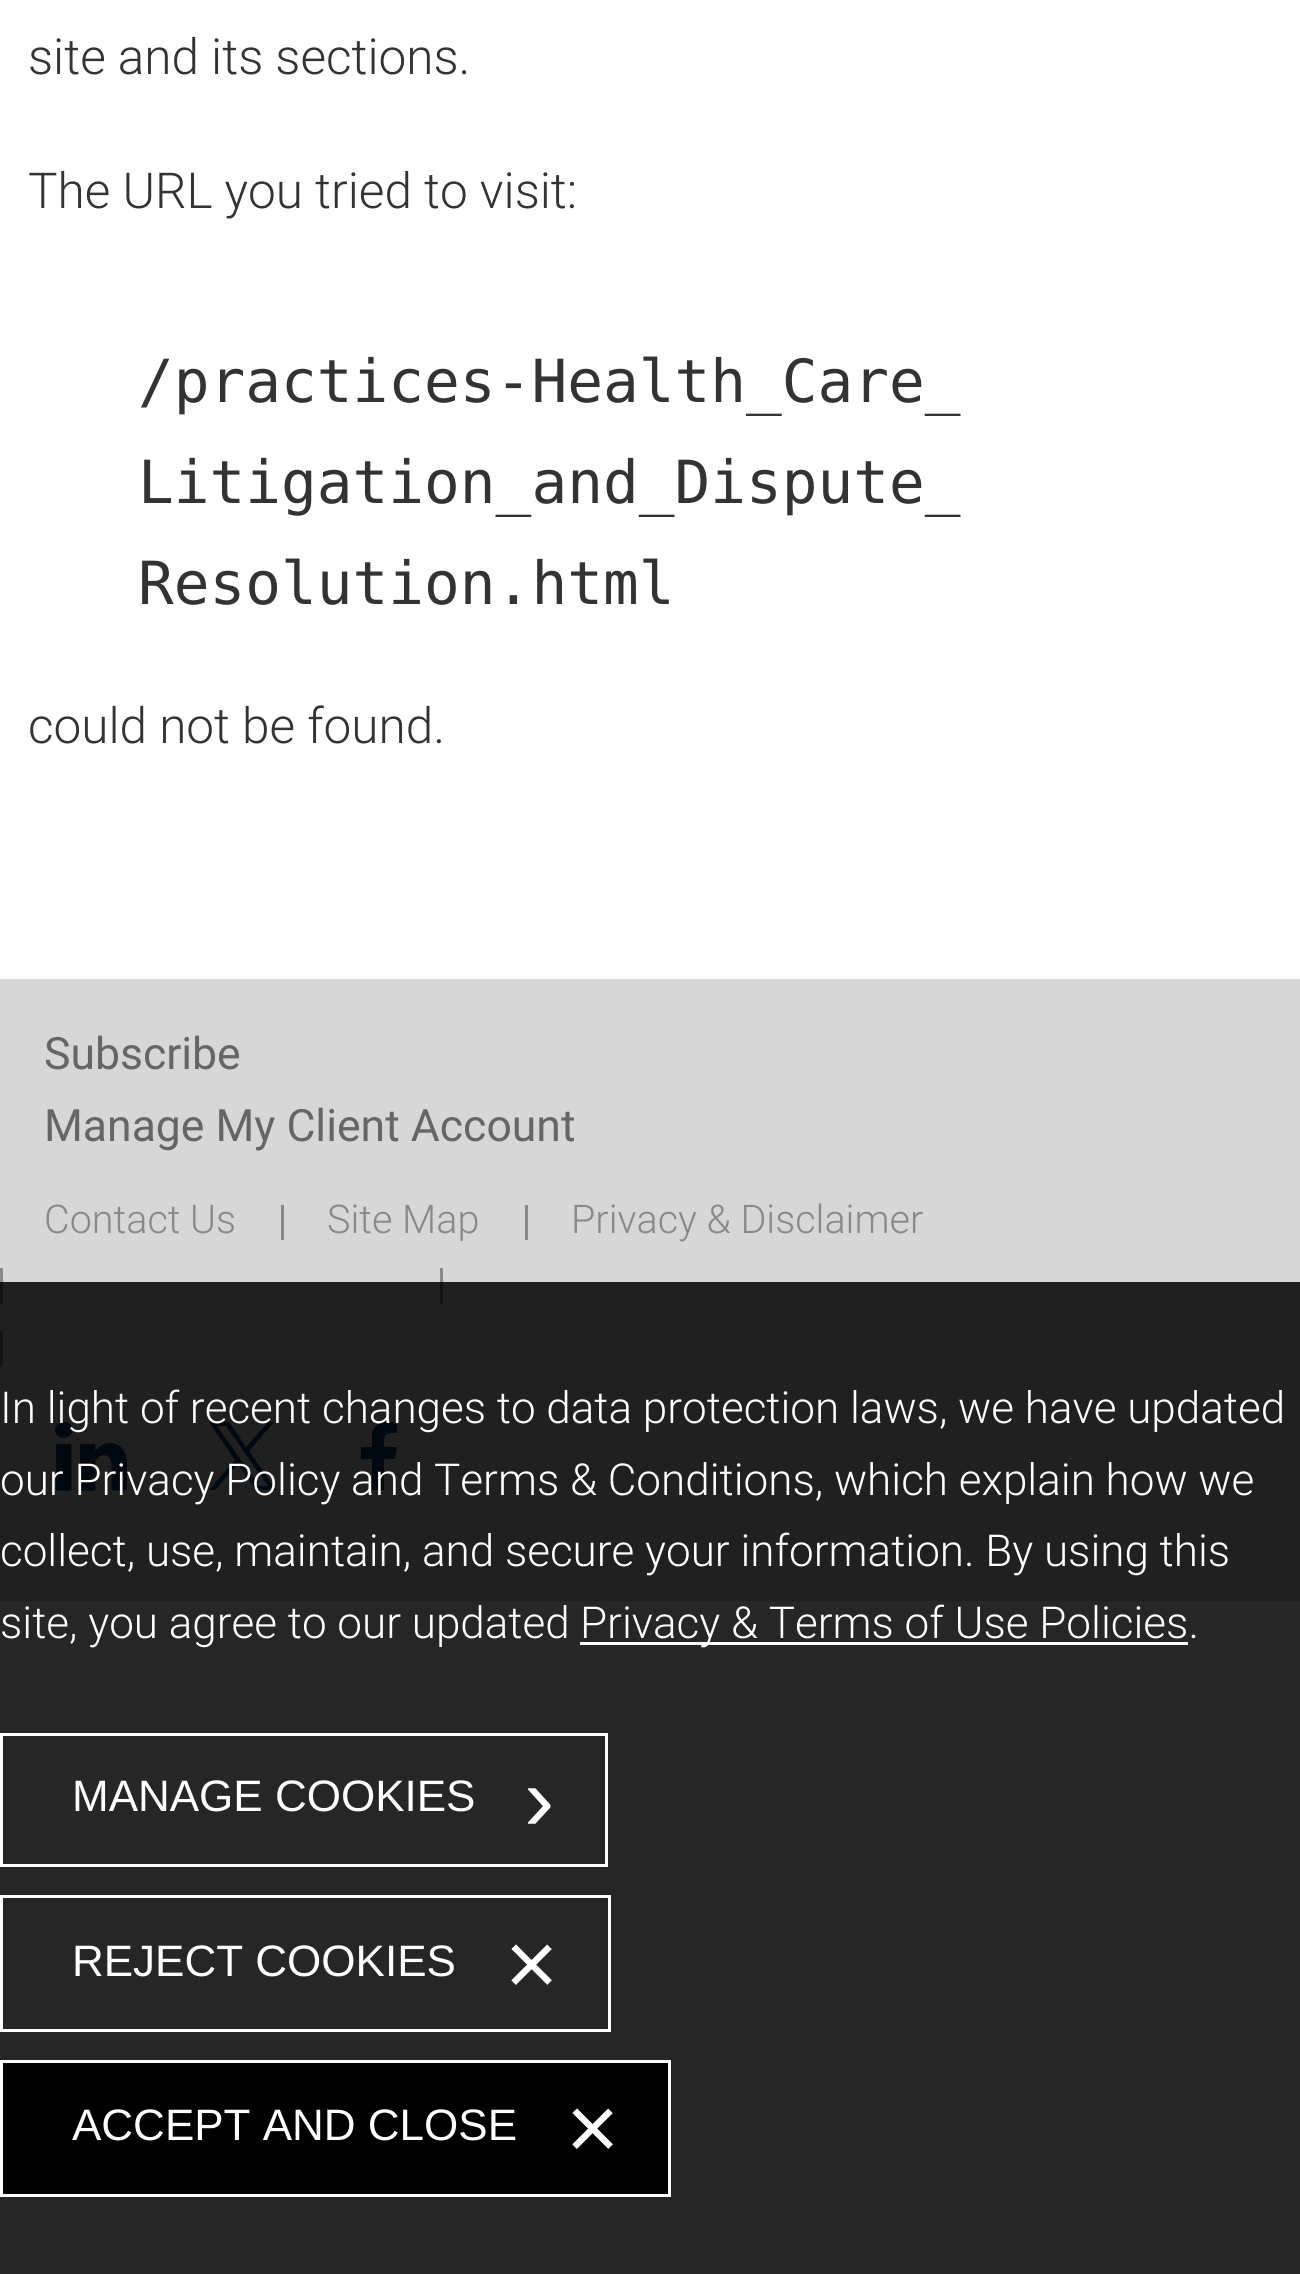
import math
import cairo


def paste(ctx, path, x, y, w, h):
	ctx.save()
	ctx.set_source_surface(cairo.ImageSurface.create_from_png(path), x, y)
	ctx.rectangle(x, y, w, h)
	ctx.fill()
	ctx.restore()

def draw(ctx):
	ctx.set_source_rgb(1, 1, 1)
	ctx.paint()
	ctx.select_font_face('Roboto Light')
	ctx.set_font_size(49.5)
	ctx.set_source_rgb(0.2, 0.2, 0.2)
	ctx.move_to(28, 74)
	ctx.show_text('site and its sections.')
	ctx.move_to(28, 208)
	ctx.show_text('The URL you tried to visit:')
	ctx.select_font_face('DejaVu Sans Mono')
	ctx.set_font_size(59.4)
	for x, y, s in [
		(138, 402, '/practices-Health_Care_'),
		(138, 503, 'Litigation_and_Dispute_'),
		(138, 604, 'Resolution.html'),
	]:
		ctx.move_to(x, y)
		ctx.show_text(s)
	ctx.select_font_face('Roboto Light')
	ctx.set_font_size(49.5)
	ctx.move_to(28, 743)
	ctx.show_text('could not be found.')
	ctx.set_source_rgb(0.843, 0.843, 0.843)
	ctx.rectangle(0, 979, 1300, 622)
	ctx.fill()
	ctx.select_font_face('Roboto')
	ctx.set_font_size(44.5)
	ctx.set_source_rgb(0.4, 0.4, 0.4)
	ctx.move_to(44, 1069)
	ctx.show_text('Subscribe')
	ctx.move_to(44, 1141)
	ctx.show_text('Manage My Client Account')
	ctx.select_font_face('Roboto Light')
	ctx.set_font_size(39.5)
	ctx.set_source_rgb(0.537, 0.537, 0.537)
	ctx.move_to(44, 1233)
	ctx.show_text('Contact Us')
	ctx.rectangle(281, 1205, 3, 35)
	ctx.fill()
	ctx.move_to(327, 1233)
	ctx.show_text('Site Map')
	ctx.rectangle(525, 1205, 3, 35)
	ctx.fill()
	ctx.move_to(571, 1233)
	ctx.show_text('Privacy & Disclaimer')
	ctx.rectangle(0, 1268, 3, 36)
	ctx.rectangle(440, 1268, 3, 36)
	ctx.rectangle(0, 1331, 3, 36)
	ctx.fill()
	paste(ctx, 'media/1.png', 55, 1422, 72, 69)
	ctx.set_source_rgb(0, 0.204, 0.416)
	ctx.new_path()
	ctx.move_to(249, 1451)
	ctx.line_to(274, 1422)
	ctx.line_to(268, 1422)
	ctx.line_to(246, 1447)
	ctx.line_to(229, 1422)
	ctx.line_to(209, 1422)
	ctx.line_to(235, 1460)
	ctx.line_to(209, 1490)
	ctx.line_to(215, 1490)
	ctx.line_to(238, 1464)
	ctx.line_to(256, 1490)
	ctx.line_to(276, 1490)
	ctx.close_path()
	ctx.move_to(241, 1460)
	ctx.line_to(217, 1426)
	ctx.line_to(226, 1426)
	ctx.line_to(268, 1486)
	ctx.line_to(259, 1486)
	ctx.close_path()
	ctx.fill()
	ctx.save()
	ctx.rectangle(360, 1422, 39, 69)
	ctx.clip()
	ctx.new_path()
	ctx.move_to(384, 1490)
	ctx.line_to(384, 1459)
	ctx.line_to(395, 1459)
	ctx.line_to(397, 1447)
	ctx.line_to(384, 1447)
	ctx.curve_to(384, 1434, 383, 1433, 397, 1433)
	ctx.line_to(397, 1422)
	ctx.curve_to(387, 1421, 374, 1421, 372, 1434)
	ctx.line_to(372, 1447)
	ctx.line_to(361, 1447)
	ctx.line_to(361, 1459)
	ctx.line_to(372, 1459)
	ctx.line_to(372, 1490)
	ctx.close_path()
	ctx.fill()
	ctx.restore()
	ctx.set_source_rgba(0, 0, 0, 0.85)
	ctx.rectangle(0, 1282, 1300, 992)
	ctx.fill()
	ctx.set_font_size(44)
	ctx.set_source_rgb(1, 1, 1)
	for x, y, s in [
		(0, 1423, 'In light of recent changes to data protection laws, we have updated'),
		(0, 1495, 'our Privacy Policy and Terms & Conditions, which explain how we'),
		(0, 1566, 'collect, use, maintain, and secure your information. By using this'),
		(0, 1638, 'site, you agree to our updated'),
	]:
		ctx.move_to(x, y)
		ctx.show_text(s)
	ctx.rectangle(580, 1642, 608, 3)
	ctx.fill()
	ctx.move_to(580, 1638)
	ctx.show_text('Privacy & Terms of Use Policies.')
	ctx.rectangle(1.5, 1734.5, 605, 131)
	ctx.set_line_width(3)
	ctx.stroke()
	ctx.select_font_face('Liberation Sans')
	ctx.move_to(72, 1811)
	ctx.show_text('MANAGE COOKIES')
	ctx.set_font_size(91)
	ctx.move_to(524, 1830)
	ctx.show_text('›')
	ctx.rectangle(1.5, 1896.5, 608, 134)
	ctx.stroke()
	ctx.set_font_size(44)
	ctx.move_to(72, 1976)
	ctx.show_text('REJECT COOKIES')
	ctx.set_font_size(91)
	ctx.move_to(505, 1995)
	ctx.show_text('×')
	ctx.set_source_rgb(0, 0, 0)
	ctx.rectangle(1.5, 2061.5, 668, 134)
	ctx.fill_preserve()
	ctx.set_source_rgb(1, 1, 1)
	ctx.stroke()
	ctx.set_font_size(44)
	ctx.move_to(72, 2140)
	ctx.show_text('ACCEPT AND CLOSE')
	ctx.set_font_size(91)
	ctx.move_to(566, 2159)
	ctx.show_text('×')


surface = cairo.ImageSurface(cairo.FORMAT_RGB24, 1300, 2274)
ctx = cairo.Context(surface)
options = cairo.FontOptions()
options.set_hint_metrics(cairo.HINT_METRICS_OFF)
options.set_hint_style(cairo.HINT_STYLE_NONE)
ctx.set_font_options(options)
ctx.set_miter_limit(4)
draw(ctx)
surface.write_to_png('image.png')
